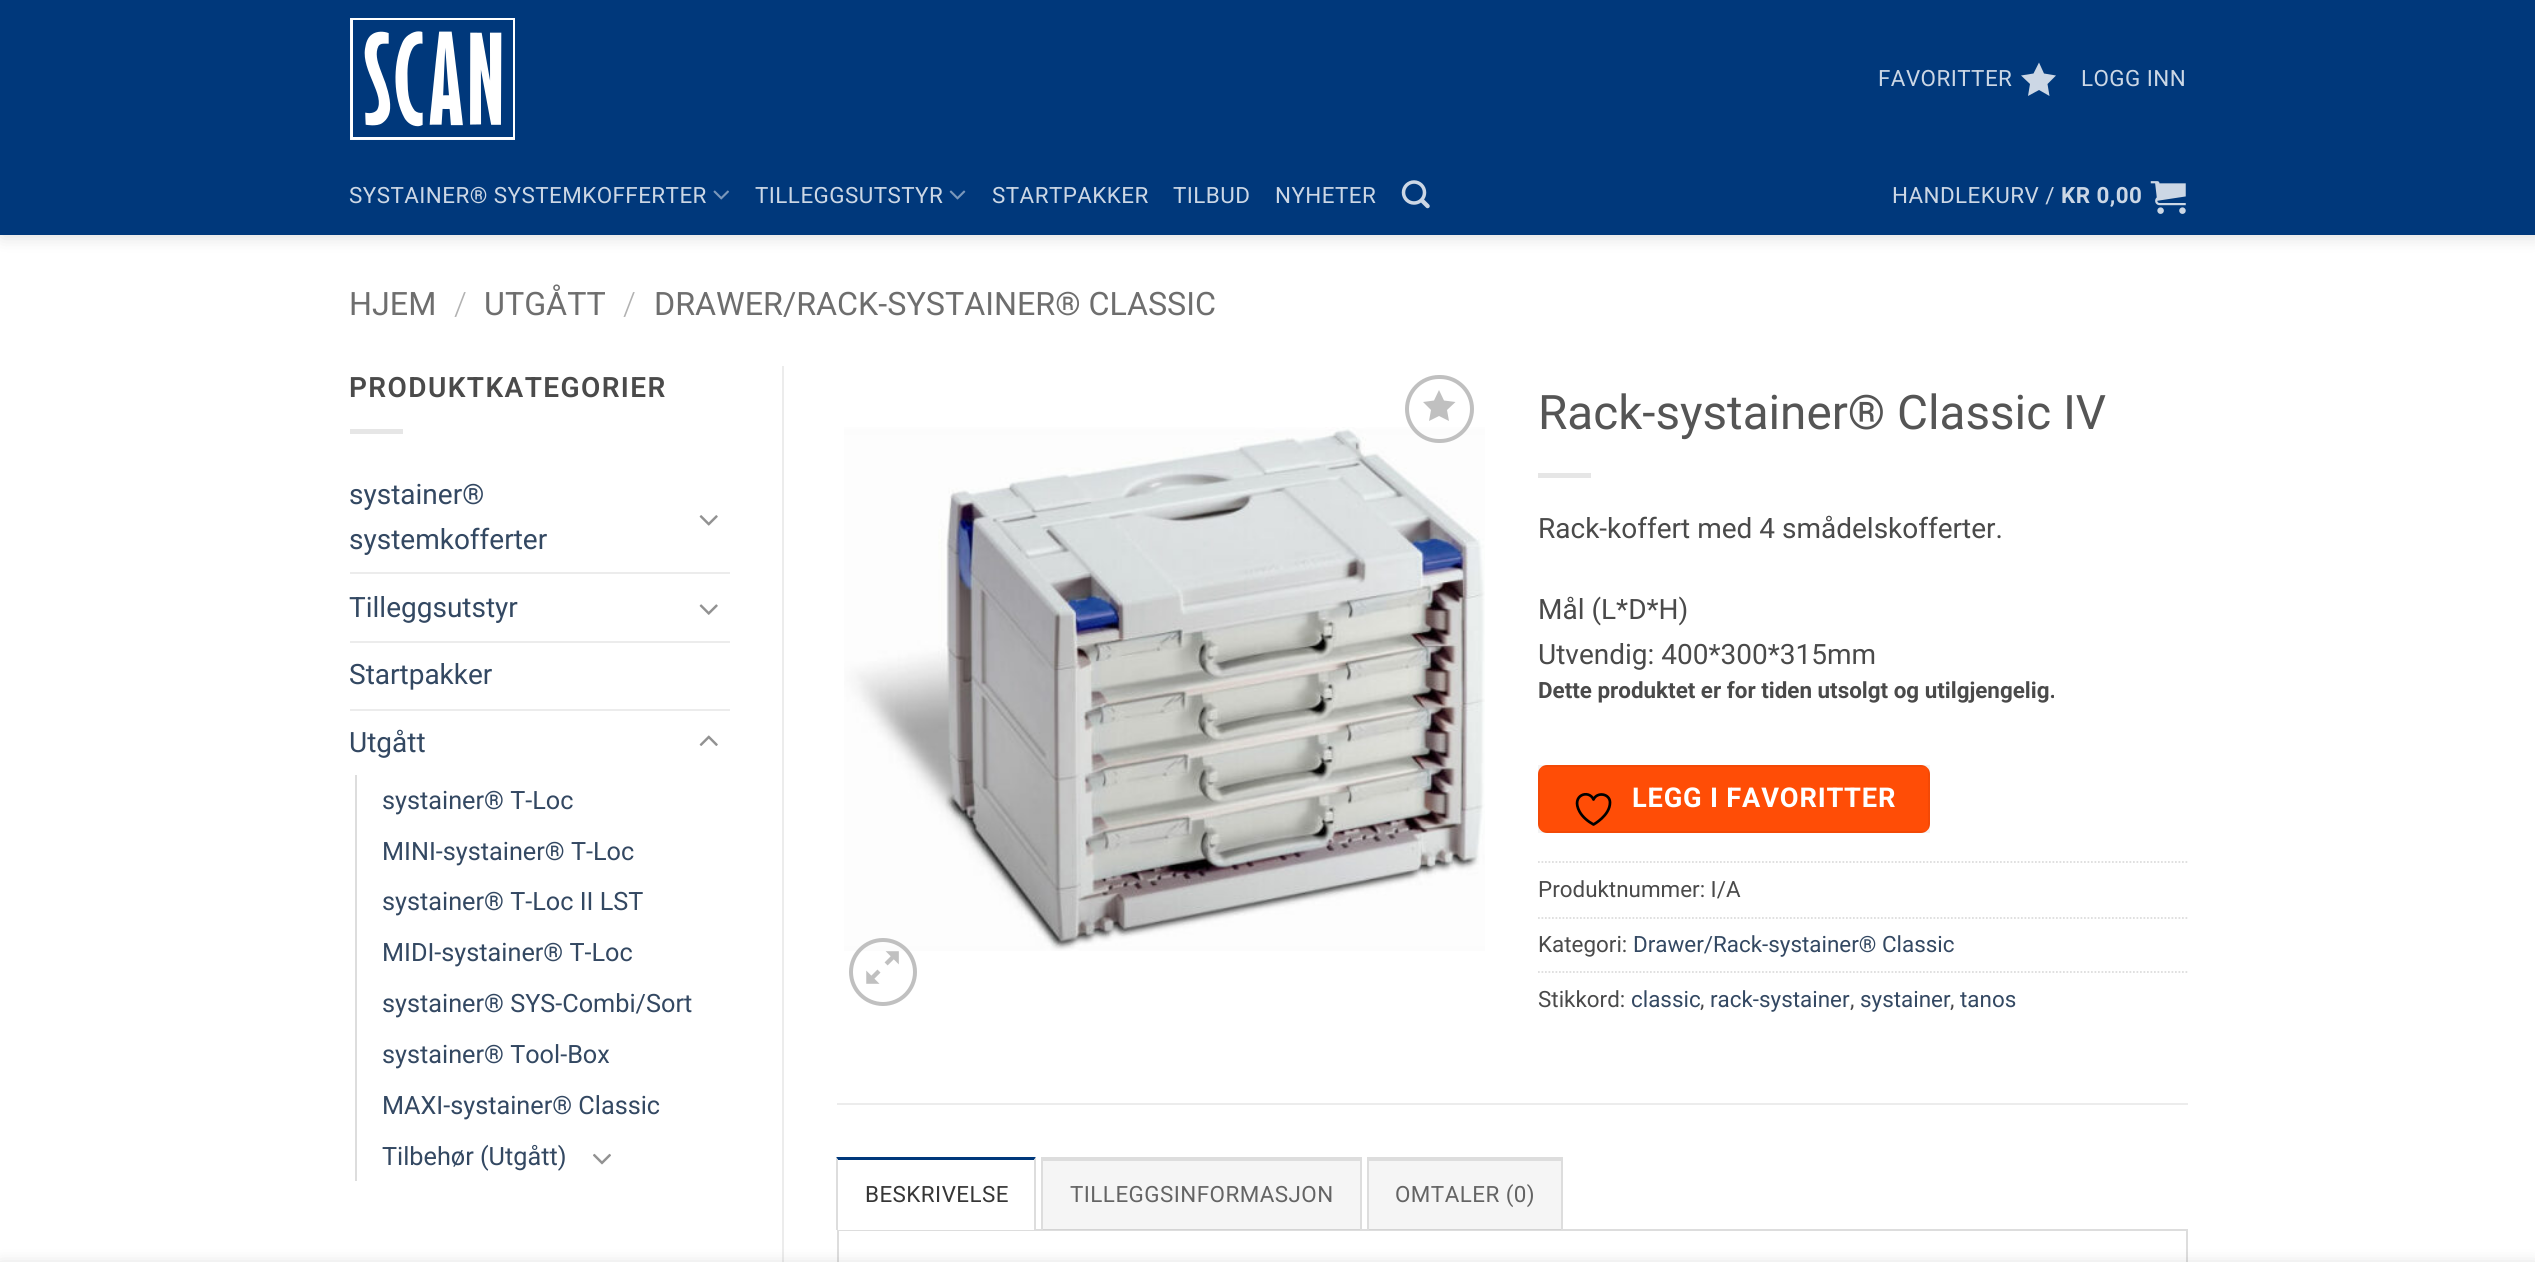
import math
import cairo


def write_spaced(ctx, x, y, s, letter, word):
	ctx.move_to(x, y)
	for ch in s:
		ctx.show_text(ch)
		ctx.rel_move_to(letter + word * (ch == ' '), 0)

def round_path(ctx, x, y, w, h, r):
	ctx.new_sub_path()
	for i, (u, v) in enumerate([(x + w - r, y + h - r), (x + r, y + h - r), (x + r, y + r), (x + w - r, y + r)]):
		ctx.arc(u, v, r, i * math.pi / 2, (i + 1) * math.pi / 2)
	ctx.close_path()

def blur_box(ctx, x, y, w, h, r, blur, alpha):
	ctx.push_group_with_content(cairo.CONTENT_ALPHA)
	ctx.set_operator(cairo.OPERATOR_SOURCE)
	for i in range(15, -16, -2):
		e = blur * i / 6
		if min(w, h) + 2 * e > 0:
			ctx.set_source_rgba(0, 0, 0, alpha * math.erfc((i - 1) / 8.5) / 2)
			round_path(ctx, x - e, y - e, w + 2 * e, h + 2 * e, max(0, min(r + e + blur * .6, min(w, h) / 2 + e)))
			ctx.fill()
	ctx.mask(ctx.pop_group())

def paste(ctx, path, x, y, w, h):
	ctx.save()
	ctx.set_source_surface(cairo.ImageSurface.create_from_png(path), x, y)
	ctx.rectangle(x, y, w, h)
	ctx.fill()
	ctx.restore()

def draw(ctx):
	ctx.set_source_rgb(1, 1, 1)
	ctx.paint()
	ctx.set_source_rgb(0, 0, 0)
	blur_box(ctx, 2, 2, 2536, 234, 0, 9, 0.15)
	ctx.set_source_rgb(0, 0.22, 0.482)
	ctx.rectangle(0, 0, 2535, 235)
	ctx.fill()
	paste(ctx, 'media/1.png', 350, 18, 165, 122)
	ctx.select_font_face('Roboto')
	ctx.set_font_size(22.4)
	ctx.set_source_rgb(0.8, 0.843, 0.898)
	write_spaced(ctx, 1878, 86, 'FAVORITTER', 0.45, 0)
	ctx.new_path()
	ctx.move_to(2056, 75.5)
	ctx.line_to(2044, 73.5)
	ctx.line_to(2039, 62.5)
	ctx.line_to(2033.5, 73.5)
	ctx.line_to(2021, 75.5)
	ctx.line_to(2030, 84)
	ctx.line_to(2028, 96)
	ctx.line_to(2039, 90)
	ctx.line_to(2049.5, 96)
	ctx.line_to(2047.5, 84)
	ctx.close_path()
	ctx.fill()
	write_spaced(ctx, 2081, 86, 'LOGG INN', 0.45, 0)
	write_spaced(ctx, 349, 203, 'SYSTAINER® SYSTEMKOFFERTER', 0.45, 0)
	paste(ctx, 'media/2.png', 713, 190, 16, 10)
	write_spaced(ctx, 755, 203, 'TILLEGGSUTSTYR', 0.45, 0)
	paste(ctx, 'media/3.png', 949, 190, 17, 10)
	for x, y, s in [
		(992, 203, 'STARTPAKKER'),
		(1173, 203, 'TILBUD'),
		(1275, 203, 'NYHETER'),
	]:
		write_spaced(ctx, x, y, s, 0.45, 0)
	paste(ctx, 'media/4.png', 1401, 180, 29, 29)
	write_spaced(ctx, 1892, 203, 'HANDLEKURV /', 0.45, 0)
	ctx.select_font_face('Roboto', cairo.FONT_SLANT_NORMAL, cairo.FONT_WEIGHT_BOLD)
	write_spaced(ctx, 2061, 203, 'KR 0,00', 0.45, 0)
	paste(ctx, 'media/5.png', 2150, 181, 36, 33)
	ctx.select_font_face('Roboto')
	ctx.set_font_size(32.25)
	ctx.set_source_rgb(0.431, 0.431, 0.431)
	ctx.move_to(349, 315)
	ctx.show_text('HJEM')
	ctx.select_font_face('Roboto Light')
	ctx.set_source_rgb(0.698, 0.698, 0.698)
	ctx.move_to(454, 315)
	ctx.show_text('/')
	ctx.select_font_face('Roboto')
	ctx.set_source_rgb(0.431, 0.431, 0.431)
	ctx.move_to(484, 315)
	ctx.show_text('UTGÅTT')
	ctx.select_font_face('Roboto Light')
	ctx.set_source_rgb(0.698, 0.698, 0.698)
	ctx.move_to(623, 315)
	ctx.show_text('/')
	ctx.select_font_face('Roboto')
	ctx.set_source_rgb(0.431, 0.431, 0.431)
	ctx.move_to(654, 315)
	ctx.show_text('DRAWER/RACK-SYSTAINER® CLASSIC')
	ctx.select_font_face('Roboto SemiBold')
	ctx.set_font_size(28)
	ctx.set_source_rgb(0.29, 0.29, 0.29)
	write_spaced(ctx, 349, 397, 'PRODUKTKATEGORIER', 1.4, 0)
	ctx.set_source_rgb(0.902, 0.902, 0.902)
	ctx.rectangle(350, 429, 53, 5)
	ctx.fill()
	ctx.select_font_face('Roboto')
	ctx.set_source_rgb(0.2, 0.282, 0.384)
	ctx.move_to(349, 504)
	ctx.show_text('systainer®')
	ctx.move_to(349, 549)
	ctx.show_text('systemkofferter')
	paste(ctx, 'media/6.png', 699, 515, 19, 11)
	ctx.set_source_rgb(0.925, 0.925, 0.925)
	ctx.rectangle(350, 572, 380, 2)
	ctx.fill()
	ctx.set_source_rgb(0.2, 0.282, 0.384)
	ctx.move_to(349, 617)
	ctx.show_text('Tilleggsutstyr')
	paste(ctx, 'media/7.png', 699, 604, 19, 11)
	ctx.set_source_rgb(0.925, 0.925, 0.925)
	ctx.rectangle(350, 641, 380, 2)
	ctx.fill()
	ctx.set_source_rgb(0.2, 0.282, 0.384)
	ctx.move_to(349, 684)
	ctx.show_text('Startpakker')
	ctx.set_source_rgb(0.925, 0.925, 0.925)
	ctx.rectangle(350, 709, 380, 2)
	ctx.fill()
	ctx.set_source_rgb(0.2, 0.282, 0.384)
	ctx.move_to(349, 752)
	ctx.show_text('Utgått')
	paste(ctx, 'media/8.png', 699, 735, 19, 11)
	ctx.set_source_rgb(0.867, 0.867, 0.867)
	ctx.rectangle(355, 775, 2, 406)
	ctx.fill()
	ctx.set_font_size(25.25)
	ctx.set_source_rgb(0.2, 0.282, 0.384)
	for x, y, s in [
		(382, 809, 'systainer® T-Loc'),
		(382, 860, 'MINI-systainer® T-Loc'),
		(382, 910, 'systainer® T-Loc II LST'),
		(382, 961, 'MIDI-systainer® T-Loc'),
		(382, 1012, 'systainer® SYS-Combi/Sort'),
		(382, 1063, 'systainer® Tool-Box'),
		(382, 1114, 'MAXI-systainer® Classic'),
		(382, 1165, 'Tilbehør (Utgått)'),
	]:
		ctx.move_to(x, y)
		ctx.show_text(s)
	paste(ctx, 'media/9.png', 593, 1153, 18, 12)
	ctx.set_source_rgb(0.925, 0.925, 0.925)
	ctx.rectangle(782, 366, 2, 896)
	ctx.fill()
	paste(ctx, 'media/10.png', 844, 427, 641, 524)
	round_path(ctx, 1407, 377, 65, 64, 32)
	ctx.set_source_rgb(0.753, 0.753, 0.753)
	ctx.set_line_width(4)
	ctx.stroke()
	ctx.new_path()
	ctx.move_to(1455.5, 402)
	ctx.line_to(1444, 400.5)
	ctx.line_to(1439, 390)
	ctx.line_to(1434, 400.5)
	ctx.line_to(1423, 402)
	ctx.line_to(1431, 410)
	ctx.line_to(1429, 421)
	ctx.line_to(1439, 416)
	ctx.line_to(1449, 421)
	ctx.line_to(1447, 410)
	ctx.close_path()
	ctx.fill()
	ctx.arc(883, 972, 32, 0, 2 * math.pi)
	ctx.stroke()
	paste(ctx, 'media/11.png', 866, 951, 33, 33)
	ctx.set_font_size(47.6)
	ctx.set_source_rgb(0.333, 0.333, 0.333)
	ctx.move_to(1538, 429)
	ctx.show_text('Rack-systainer® Classic IV')
	ctx.set_source_rgb(0.902, 0.902, 0.902)
	ctx.rectangle(1538, 473, 53, 5)
	ctx.fill()
	ctx.set_font_size(28)
	ctx.set_source_rgb(0.29, 0.29, 0.29)
	for x, y, s in [
		(1538, 538, 'Rack-koffert med 4 smådelskofferter.'),
		(1538, 619, 'Mål (L*D*H)'),
		(1538, 664, 'Utvendig: 400*300*315mm'),
	]:
		ctx.move_to(x, y)
		ctx.show_text(s)
	ctx.select_font_face('Roboto', cairo.FONT_SLANT_NORMAL, cairo.FONT_WEIGHT_BOLD)
	ctx.set_font_size(22.4)
	ctx.move_to(1538, 698)
	ctx.show_text('Dette produktet er for tiden utsolgt og utilgjengelig.')
	ctx.set_source_rgb(1, 0.302, 0.024)
	round_path(ctx, 1538, 765, 392, 68, 9)
	ctx.fill()
	ctx.rectangle(1539, 766, 390, 66)
	ctx.set_source_rgba(0, 0, 0, 0.05)
	ctx.set_line_width(2)
	ctx.stroke()
	ctx.new_path()
	ctx.move_to(1610, 802.5)
	ctx.curve_to(1610, 793.5, 1597, 791.5, 1593.5, 799.5)
	ctx.curve_to(1589, 789, 1570.5, 795, 1579.5, 811.5)
	ctx.curve_to(1582.5, 817, 1588, 821.5, 1593.5, 824.5)
	ctx.curve_to(1593.5, 824.5, 1610, 815.5, 1610, 802.5)
	ctx.close_path()
	ctx.set_source_rgb(0, 0, 0)
	ctx.set_line_width(2.7)
	ctx.set_line_cap(cairo.LINE_CAP_ROUND)
	ctx.set_line_join(cairo.LINE_JOIN_ROUND)
	ctx.stroke()
	ctx.set_font_size(27.25)
	ctx.set_source_rgb(1, 1, 1)
	write_spaced(ctx, 1632, 807, 'LEGG I FAVORITTER', 0.8, 0)
	ctx.new_path()
	ctx.move_to(1538, 862)
	ctx.line_to(2187.5, 862)
	ctx.set_source_rgb(0.867, 0.867, 0.867)
	ctx.set_line_width(1.8)
	ctx.set_line_cap(cairo.LINE_CAP_BUTT)
	ctx.set_line_join(cairo.LINE_JOIN_MITER)
	ctx.set_dash([1.75, 1.75])
	ctx.stroke()
	ctx.select_font_face('Roboto')
	ctx.set_font_size(22.4)
	ctx.set_source_rgb(0.29, 0.29, 0.29)
	ctx.move_to(1538, 897)
	ctx.show_text('Produktnummer: I/A')
	ctx.new_path()
	ctx.move_to(1538, 918)
	ctx.line_to(2187.5, 918)
	ctx.set_source_rgb(0.867, 0.867, 0.867)
	ctx.stroke()
	ctx.set_source_rgb(0.29, 0.29, 0.29)
	ctx.move_to(1538, 952)
	ctx.show_text('Kategori:')
	ctx.set_source_rgb(0.2, 0.282, 0.384)
	ctx.move_to(1633, 952)
	ctx.show_text('Drawer/Rack-systainer® Classic')
	ctx.new_path()
	ctx.move_to(1538, 972)
	ctx.line_to(2187.5, 972)
	ctx.set_source_rgb(0.867, 0.867, 0.867)
	ctx.stroke()
	ctx.set_source_rgb(0.29, 0.29, 0.29)
	ctx.move_to(1538, 1007)
	ctx.show_text('Stikkord:')
	ctx.set_source_rgb(0.2, 0.282, 0.384)
	ctx.move_to(1631, 1007)
	ctx.show_text('classic')
	ctx.set_source_rgb(0.29, 0.29, 0.29)
	ctx.move_to(1700, 1007)
	ctx.show_text(',')
	ctx.set_source_rgb(0.2, 0.282, 0.384)
	ctx.move_to(1710, 1007)
	ctx.show_text('rack-systainer')
	ctx.set_source_rgb(0.29, 0.29, 0.29)
	ctx.move_to(1850, 1007)
	ctx.show_text(',')
	ctx.set_source_rgb(0.2, 0.282, 0.384)
	ctx.move_to(1860, 1007)
	ctx.show_text('systainer')
	ctx.set_source_rgb(0.29, 0.29, 0.29)
	ctx.move_to(1950, 1007)
	ctx.show_text(',')
	ctx.set_source_rgb(0.2, 0.282, 0.384)
	ctx.move_to(1960, 1007)
	ctx.show_text('tanos')
	ctx.set_source_rgb(0.925, 0.925, 0.925)
	ctx.rectangle(837, 1103, 1351, 2)
	ctx.fill()
	ctx.rectangle(838, 1230, 1349, 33)
	ctx.set_source_rgb(0.867, 0.867, 0.867)
	ctx.set_line_width(2)
	ctx.set_dash([])
	ctx.stroke()
	ctx.set_source_rgb(1, 1, 1)
	ctx.rectangle(837, 1229, 199, 1)
	ctx.fill()
	ctx.set_source_rgb(0, 0.22, 0.482)
	ctx.new_path()
	ctx.move_to(836, 1157)
	ctx.line_to(1036, 1157)
	ctx.line_to(1034, 1160)
	ctx.line_to(838, 1160)
	ctx.close_path()
	ctx.fill()
	ctx.set_source_rgb(0.867, 0.867, 0.867)
	ctx.new_path()
	ctx.move_to(1036, 1157)
	ctx.line_to(1036, 1230)
	ctx.line_to(1034, 1230)
	ctx.line_to(1034, 1160)
	ctx.close_path()
	ctx.fill()
	ctx.new_path()
	ctx.move_to(836, 1230)
	ctx.line_to(836, 1157)
	ctx.line_to(838, 1160)
	ctx.line_to(838, 1230)
	ctx.close_path()
	ctx.fill()
	ctx.set_source_rgb(0.212, 0.212, 0.212)
	write_spaced(ctx, 865, 1202, 'BESKRIVELSE', 0.45, 0)
	ctx.set_source_rgba(0, 0, 0, 0.04)
	ctx.rectangle(1043, 1161, 317, 69)
	ctx.fill()
	ctx.set_source_rgb(0.867, 0.867, 0.867)
	ctx.rectangle(1041, 1157, 321, 4)
	ctx.rectangle(1360, 1157, 2, 73)
	ctx.rectangle(1041, 1157, 2, 73)
	ctx.fill()
	ctx.set_source_rgb(0.392, 0.392, 0.392)
	write_spaced(ctx, 1070, 1202, 'TILLEGGSINFORMASJON', 0.45, 0)
	ctx.set_source_rgba(0, 0, 0, 0.04)
	ctx.rectangle(1369, 1161, 192, 69)
	ctx.fill()
	ctx.set_source_rgb(0.867, 0.867, 0.867)
	ctx.rectangle(1367, 1157, 196, 4)
	ctx.rectangle(1561, 1157, 2, 73)
	ctx.rectangle(1367, 1157, 2, 73)
	ctx.fill()
	ctx.set_source_rgb(0.392, 0.392, 0.392)
	write_spaced(ctx, 1395, 1202, 'OMTALER (0)', 0.45, 0)
	ctx.set_source_rgb(0, 0, 0)
	blur_box(ctx, 0, 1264, 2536, 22, 0, 8, 0.14)


surface = cairo.ImageSurface(cairo.FORMAT_RGB24, 2535, 1262)
ctx = cairo.Context(surface)
options = cairo.FontOptions()
options.set_hint_metrics(cairo.HINT_METRICS_OFF)
options.set_hint_style(cairo.HINT_STYLE_NONE)
ctx.set_font_options(options)
ctx.set_miter_limit(4)
draw(ctx)
surface.write_to_png('image.png')
